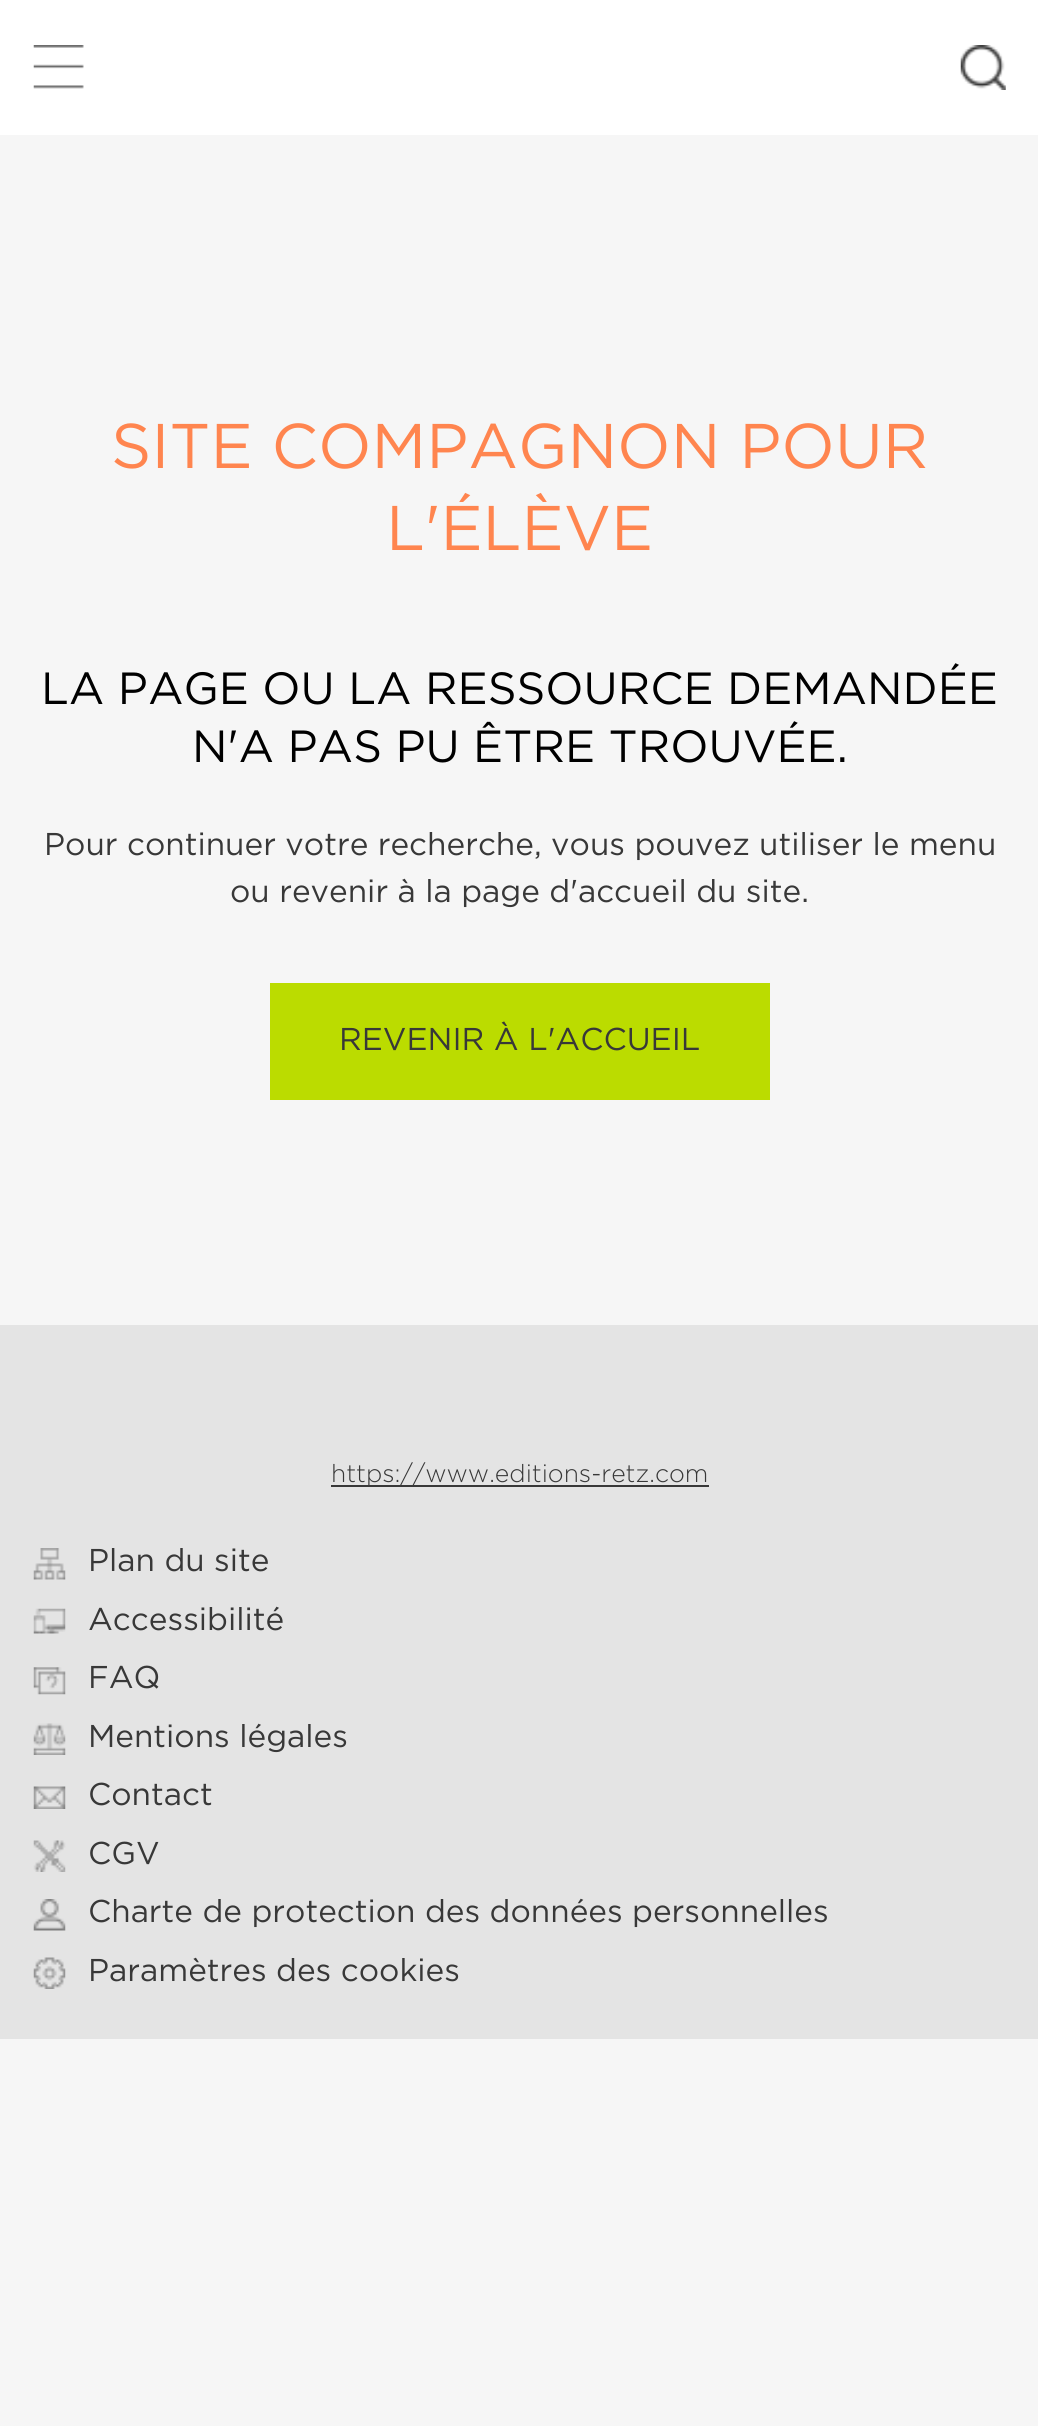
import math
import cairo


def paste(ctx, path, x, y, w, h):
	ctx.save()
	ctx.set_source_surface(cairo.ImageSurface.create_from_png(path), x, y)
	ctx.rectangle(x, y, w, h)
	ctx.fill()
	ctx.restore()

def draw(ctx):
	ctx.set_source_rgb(0.961, 0.961, 0.961)
	ctx.paint()
	ctx.set_source_rgb(1, 1, 1)
	ctx.rectangle(0, 0, 1038, 135)
	ctx.fill()
	paste(ctx, 'media/1.png', 33, 45, 51, 44)
	paste(ctx, 'media/2.png', 960, 45, 46, 45)
	ctx.select_font_face('Gotham')
	ctx.set_font_size(63)
	ctx.set_source_rgb(1, 0.522, 0.31)
	ctx.move_to(111, 468)
	ctx.show_text('SITE COMPAGNON POUR')
	ctx.move_to(386, 550)
	ctx.show_text('L\'ÉLÈVE')
	ctx.set_font_size(45)
	ctx.set_source_rgb(0, 0, 0)
	ctx.move_to(41, 704)
	ctx.show_text('LA PAGE OU LA RESSOURCE DEMANDÉE')
	ctx.move_to(192, 762)
	ctx.show_text('N\'A PAS PU ÊTRE TROUVÉE.')
	ctx.set_font_size(31.5)
	ctx.set_source_rgb(0.22, 0.22, 0.22)
	ctx.move_to(44, 855)
	ctx.show_text('Pour continuer votre recherche, vous pouvez utiliser le menu')
	ctx.move_to(230, 902)
	ctx.show_text('ou revenir à la page d\'accueil du site.')
	ctx.set_source_rgb(0.733, 0.863, 0)
	ctx.rectangle(270, 983, 500, 117)
	ctx.fill()
	ctx.set_source_rgb(0.22, 0.22, 0.22)
	ctx.move_to(339, 1050)
	ctx.show_text('REVENIR À L\'ACCUEIL')
	ctx.set_source_rgb(0.894, 0.894, 0.894)
	ctx.rectangle(0, 1325, 1038, 714)
	ctx.fill()
	ctx.set_source_rgb(0.22, 0.22, 0.22)
	ctx.rectangle(331, 1485, 378, 2)
	ctx.fill()
	ctx.select_font_face('Gotham Light')
	ctx.set_font_size(24.75)
	ctx.move_to(331, 1482)
	ctx.show_text('https://www.editions-retz.com')
	paste(ctx, 'media/3.png', 33, 1548, 33, 32)
	ctx.select_font_face('Gotham')
	ctx.set_font_size(31.5)
	ctx.move_to(88, 1571)
	ctx.show_text('Plan du site')
	paste(ctx, 'media/4.png', 33, 1608, 33, 26)
	ctx.move_to(88, 1630)
	ctx.show_text('Accessibilité')
	paste(ctx, 'media/5.png', 33, 1667, 33, 28)
	ctx.move_to(88, 1688)
	ctx.show_text('FAQ')
	paste(ctx, 'media/6.png', 33, 1723, 33, 32)
	ctx.move_to(88, 1747)
	ctx.show_text('Mentions légales')
	paste(ctx, 'media/7.png', 33, 1786, 33, 23)
	ctx.move_to(88, 1805)
	ctx.show_text('Contact')
	paste(ctx, 'media/8.png', 33, 1840, 33, 32)
	ctx.move_to(88, 1864)
	ctx.show_text('CGV')
	paste(ctx, 'media/9.png', 33, 1899, 33, 32)
	ctx.move_to(88, 1922)
	ctx.show_text('Charte de protection des données personnelles')
	paste(ctx, 'media/10.png', 33, 1957, 33, 32)
	ctx.move_to(88, 1981)
	ctx.show_text('Paramètres des cookies')


surface = cairo.ImageSurface(cairo.FORMAT_RGB24, 1038, 2426)
ctx = cairo.Context(surface)
options = cairo.FontOptions()
options.set_hint_metrics(cairo.HINT_METRICS_OFF)
options.set_hint_style(cairo.HINT_STYLE_NONE)
ctx.set_font_options(options)
ctx.set_miter_limit(4)
draw(ctx)
surface.write_to_png('image.png')
